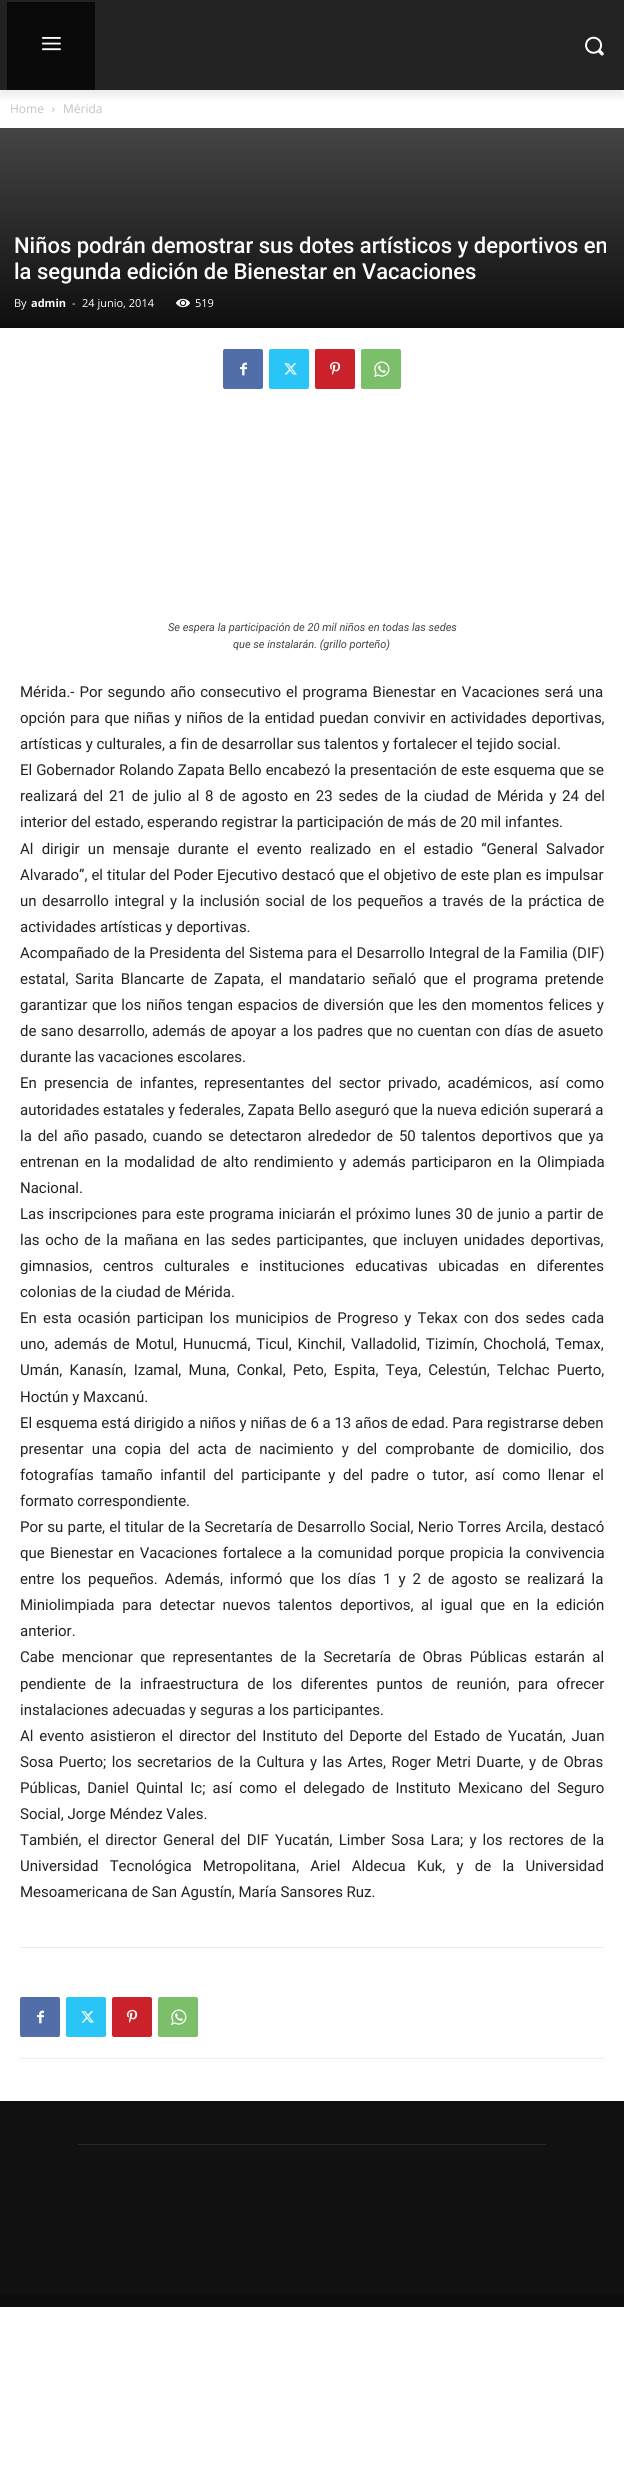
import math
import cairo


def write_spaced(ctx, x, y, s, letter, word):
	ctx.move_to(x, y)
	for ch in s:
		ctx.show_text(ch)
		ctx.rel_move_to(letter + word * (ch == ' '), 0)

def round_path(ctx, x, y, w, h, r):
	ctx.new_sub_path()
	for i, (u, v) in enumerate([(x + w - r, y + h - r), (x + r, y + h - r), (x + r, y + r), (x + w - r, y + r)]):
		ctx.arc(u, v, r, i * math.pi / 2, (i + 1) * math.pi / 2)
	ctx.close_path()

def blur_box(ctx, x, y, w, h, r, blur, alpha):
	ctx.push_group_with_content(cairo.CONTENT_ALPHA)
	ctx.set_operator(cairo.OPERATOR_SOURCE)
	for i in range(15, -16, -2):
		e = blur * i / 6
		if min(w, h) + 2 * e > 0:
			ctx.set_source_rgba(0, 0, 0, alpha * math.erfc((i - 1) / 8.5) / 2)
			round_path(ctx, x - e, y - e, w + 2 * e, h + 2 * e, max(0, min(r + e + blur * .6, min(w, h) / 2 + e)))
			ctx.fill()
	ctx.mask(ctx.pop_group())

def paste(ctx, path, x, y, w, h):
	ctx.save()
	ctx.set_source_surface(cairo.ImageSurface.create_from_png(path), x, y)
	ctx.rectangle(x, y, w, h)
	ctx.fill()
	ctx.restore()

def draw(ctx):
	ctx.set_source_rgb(1, 1, 1)
	ctx.paint()
	ctx.set_source_rgb(0.133, 0.133, 0.133)
	ctx.rectangle(0, 0, 624, 90)
	ctx.fill()
	ctx.set_source_rgb(0.039, 0.039, 0.039)
	ctx.rectangle(7, 2, 88, 88)
	ctx.fill()
	paste(ctx, 'media/1.png', 42, 37, 19, 14)
	paste(ctx, 'media/2.png', 585, 36, 19, 20)
	paste(ctx, 'media/3.png', 52, 107, 3, 5)
	ctx.save()
	ctx.rectangle(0, 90, 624, 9)
	ctx.clip()
	ctx.set_source_rgb(0, 0, 0)
	blur_box(ctx, 0, 6, 624, 90, 0, 4, 0.08)
	ctx.restore()
	ctx.select_font_face('Open Sans')
	ctx.set_font_size(12)
	ctx.set_source_rgb(0.765, 0.765, 0.765)
	ctx.move_to(10, 113)
	ctx.show_text('Home')
	ctx.move_to(63, 113)
	ctx.show_text('Mérida')
	gradient = cairo.LinearGradient(312, 128, 312, 328)
	gradient.add_color_stop_rgba(0, 0.267, 0.267, 0.267, 1)
	gradient.add_color_stop_rgba(1, 0.055, 0.055, 0.055, 1)
	ctx.set_source(gradient)
	ctx.rectangle(0, 128, 624, 200)
	ctx.fill()
	ctx.select_font_face('Roboto Medium')
	ctx.set_font_size(22)
	ctx.set_source_rgb(1, 1, 1)
	ctx.move_to(14, 253)
	ctx.show_text('Niños podrán demostrar sus dotes artísticos y deportivos en')
	ctx.move_to(14, 279)
	ctx.show_text('la segunda edición de Bienestar en Vacaciones')
	ctx.select_font_face('Open Sans')
	ctx.set_font_size(11)
	ctx.move_to(14, 307)
	ctx.show_text('By')
	ctx.select_font_face('Open Sans', cairo.FONT_SLANT_NORMAL, cairo.FONT_WEIGHT_BOLD)
	ctx.move_to(31, 307)
	ctx.show_text('admin')
	ctx.select_font_face('Open Sans')
	ctx.move_to(72, 307)
	ctx.show_text('-')
	ctx.move_to(82, 307)
	ctx.show_text('24 junio, 2014')
	paste(ctx, 'media/4.png', 176, 298, 14, 10)
	ctx.move_to(195, 307)
	ctx.show_text('519')
	ctx.set_source_rgb(0.318, 0.431, 0.671)
	round_path(ctx, 223, 349, 40, 40, 2)
	ctx.fill()
	paste(ctx, 'media/5.png', 240, 362, 7, 14)
	ctx.set_source_rgb(0.161, 0.773, 0.965)
	round_path(ctx, 269, 349, 40, 40, 2)
	ctx.fill()
	paste(ctx, 'media/6.png', 284, 363, 13, 12)
	ctx.set_source_rgb(0.792, 0.129, 0.165)
	round_path(ctx, 315, 349, 40, 40, 2)
	ctx.fill()
	paste(ctx, 'media/7.png', 330, 361, 11, 14)
	ctx.set_source_rgb(0.482, 0.749, 0.416)
	round_path(ctx, 361, 349, 40, 40, 2)
	ctx.fill()
	paste(ctx, 'media/8.png', 374, 361, 16, 16)
	ctx.select_font_face('Roboto', cairo.FONT_SLANT_ITALIC)
	ctx.set_source_rgb(0.267, 0.267, 0.267)
	ctx.move_to(168, 631)
	ctx.show_text('Se espera la participación de 20 mil niños en todas las sedes')
	ctx.move_to(233, 648)
	ctx.show_text('que se instalarán. (grillo porteño)')
	ctx.select_font_face('Roboto')
	ctx.set_font_size(15)
	ctx.set_source_rgb(0.133, 0.133, 0.133)
	write_spaced(ctx, 20, 697, 'Mérida.- Por segundo año consecutivo el programa Bienestar en Vacaciones será una', 0, 1.25)
	write_spaced(ctx, 20, 723, 'opción para que niñas y niños de la entidad puedan convivir en actividades deportivas,', 0, 0.9)
	ctx.move_to(20, 749)
	ctx.show_text('artísticas y culturales, a fin de desarrollar sus talentos y fortalecer el tejido social.')
	write_spaced(ctx, 20, 775, 'El Gobernador Rolando Zapata Bello encabezó la presentación de este esquema que se', 0, 0.25)
	write_spaced(ctx, 20, 801, 'realizará del 21 de julio al 8 de agosto en 23 sedes de la ciudad de Mérida y 24 del', 0, 2.1)
	ctx.move_to(20, 827)
	ctx.show_text('interior del estado, esperando registrar la participación de más de 20 mil infantes.')
	write_spaced(ctx, 20, 854, 'Al dirigir un mensaje durante el evento realizado en el estadio “General Salvador', 0, 4.5)
	write_spaced(ctx, 20, 880, 'Alvarado”, el titular del Poder Ejecutivo destacó que el objetivo de este plan es impulsar', 0, 0.25)
	write_spaced(ctx, 20, 906, 'un desarrollo integral y la inclusión social de los pequeños a través de la práctica de', 0, 1.75)
	ctx.move_to(20, 932)
	ctx.show_text('actividades artísticas y deportivas.')
	write_spaced(ctx, 20, 958, 'Acompañado de la Presidenta del Sistema para el Desarrollo Integral de la Familia (DIF)', 0, 0.2)
	write_spaced(ctx, 20, 984, 'estatal, Sarita Blancarte de Zapata, el mandatario señaló que el programa pretende', 0, 3)
	write_spaced(ctx, 20, 1010, 'garantizar que los niños tengan espacios de diversión que les den momentos felices y', 0, 0.9)
	write_spaced(ctx, 20, 1036, 'de sano desarrollo, además de apoyar a los padres que no cuentan con días de asueto', 0, 0.6)
	ctx.move_to(20, 1062)
	ctx.show_text('durante las vacaciones escolares.')
	write_spaced(ctx, 20, 1088, 'En presencia de infantes, representantes del sector privado, académicos, así como', 0, 3.4)
	ctx.move_to(20, 1115)
	ctx.show_text('autoridades estatales y federales, Zapata Bello aseguró que la nueva edición superará a')
	write_spaced(ctx, 20, 1141, 'la del año pasado, cuando se detectaron alrededor de 50 talentos deportivos que ya', 0, 2.1)
	write_spaced(ctx, 20, 1167, 'entrenan en la modalidad de alto rendimiento y además participaron en la Olimpiada', 0, 2)
	ctx.move_to(20, 1193)
	ctx.show_text('Nacional.')
	write_spaced(ctx, 20, 1219, 'Las inscripciones para este programa iniciarán el próximo lunes 30 de junio a partir de', 0, 0.75)
	write_spaced(ctx, 20, 1245, 'las ocho de la mañana en las sedes participantes, que incluyen unidades deportivas,', 0, 2)
	write_spaced(ctx, 20, 1271, 'gimnasios, centros culturales e instituciones educativas ubicadas en diferentes', 0, 7)
	ctx.move_to(20, 1297)
	ctx.show_text('colonias de la ciudad de Mérida.')
	write_spaced(ctx, 20, 1323, 'En esta ocasión participan los municipios de Progreso y Tekax con dos sedes cada', 0, 2.4)
	write_spaced(ctx, 20, 1349, 'uno, además de Motul, Hunucmá, Ticul, Kinchil, Valladolid, Tizimín, Chocholá, Temax,', 0, 2.1)
	write_spaced(ctx, 20, 1375, 'Umán, Kanasín, Izamal, Muna, Conkal, Peto, Espita, Teya, Celestún, Telchac Puerto,', 0, 3.6)
	ctx.move_to(20, 1402)
	ctx.show_text('Hoctún y Maxcanú.')
	ctx.move_to(20, 1428)
	ctx.show_text('El esquema está dirigido a niños y niñas de 6 a 13 años de edad. Para registrarse deben')
	write_spaced(ctx, 20, 1454, 'presentar una copia del acta de nacimiento y del comprobante de domicilio, dos', 0, 4.4)
	write_spaced(ctx, 20, 1480, 'fotografías tamaño infantil del participante y del padre o tutor, así como llenar el', 0, 3.9)
	ctx.move_to(20, 1506)
	ctx.show_text('formato correspondiente.')
	write_spaced(ctx, 20, 1532, 'Por su parte, el titular de la Secretaría de Desarrollo Social, Nerio Torres Arcila, destacó', 0, 0.5)
	write_spaced(ctx, 20, 1558, 'que Bienestar en Vacaciones fortalece a la comunidad porque propicia la convivencia', 0, 1.5)
	write_spaced(ctx, 20, 1584, 'entre los pequeños. Además, informó que los días 1 y 2 de agosto se realizará la', 0, 3.25)
	write_spaced(ctx, 20, 1610, 'Miniolimpiada para detectar nuevos talentos deportivos, al igual que en la edición', 0, 3.9)
	ctx.move_to(20, 1636)
	ctx.show_text('anterior.')
	write_spaced(ctx, 20, 1662, 'Cabe mencionar que representantes de la Secretaría de Obras Públicas estarán al', 0, 3.75)
	write_spaced(ctx, 20, 1689, 'pendiente de la infraestructura de los diferentes puntos de reunión, para ofrecer', 0, 4.9)
	ctx.move_to(20, 1715)
	ctx.show_text('instalaciones adecuadas y seguras a los participantes.')
	write_spaced(ctx, 20, 1741, 'Al evento asistieron el director del Instituto del Deporte del Estado de Yucatán, Juan', 0, 2.1)
	write_spaced(ctx, 20, 1767, 'Sosa Puerto; los secretarios de la Cultura y las Artes, Roger Metri Duarte, y de Obras', 0, 1.75)
	write_spaced(ctx, 20, 1793, 'Públicas, Daniel Quintal Ic; así como el delegado de Instituto Mexicano del Seguro', 0, 3.4)
	ctx.move_to(20, 1819)
	ctx.show_text('Social, Jorge Méndez Vales.')
	write_spaced(ctx, 20, 1845, 'También, el director General del DIF Yucatán, Limber Sosa Lara; y los rectores de la', 0, 2.4)
	write_spaced(ctx, 20, 1871, 'Universidad Tecnológica Metropolitana, Ariel Aldecua Kuk, y de la Universidad', 0, 7.5)
	ctx.move_to(20, 1897)
	ctx.show_text('Mesoamericana de San Agustín, María Sansores Ruz.')
	ctx.set_source_rgb(0.929, 0.929, 0.929)
	ctx.rectangle(20, 1947, 584, 1)
	ctx.fill()
	ctx.rectangle(20, 2058, 584, 1)
	ctx.fill()
	ctx.set_source_rgb(0.318, 0.431, 0.671)
	round_path(ctx, 20, 1997, 40, 40, 2)
	ctx.fill()
	paste(ctx, 'media/5.png', 37, 2010, 7, 14)
	ctx.set_source_rgb(0.161, 0.773, 0.965)
	round_path(ctx, 66, 1997, 40, 40, 2)
	ctx.fill()
	paste(ctx, 'media/6.png', 81, 2011, 13, 12)
	ctx.set_source_rgb(0.792, 0.129, 0.165)
	round_path(ctx, 112, 1997, 40, 40, 2)
	ctx.fill()
	paste(ctx, 'media/7.png', 127, 2009, 11, 14)
	ctx.set_source_rgb(0.482, 0.749, 0.416)
	round_path(ctx, 158, 1997, 40, 40, 2)
	ctx.fill()
	paste(ctx, 'media/8.png', 171, 2009, 16, 16)
	ctx.set_source_rgb(0.067, 0.067, 0.067)
	ctx.rectangle(0, 2101, 624, 193)
	ctx.fill()
	ctx.set_source_rgb(0.161, 0.161, 0.161)
	ctx.rectangle(78, 2144, 468, 1)
	ctx.fill()
	ctx.set_source_rgb(0.051, 0.051, 0.051)
	ctx.rectangle(0, 2294, 624, 13)
	ctx.fill()


surface = cairo.ImageSurface(cairo.FORMAT_RGB24, 624, 2477)
ctx = cairo.Context(surface)
options = cairo.FontOptions()
options.set_hint_metrics(cairo.HINT_METRICS_OFF)
options.set_hint_style(cairo.HINT_STYLE_NONE)
ctx.set_font_options(options)
ctx.set_miter_limit(4)
draw(ctx)
surface.write_to_png('image.png')
